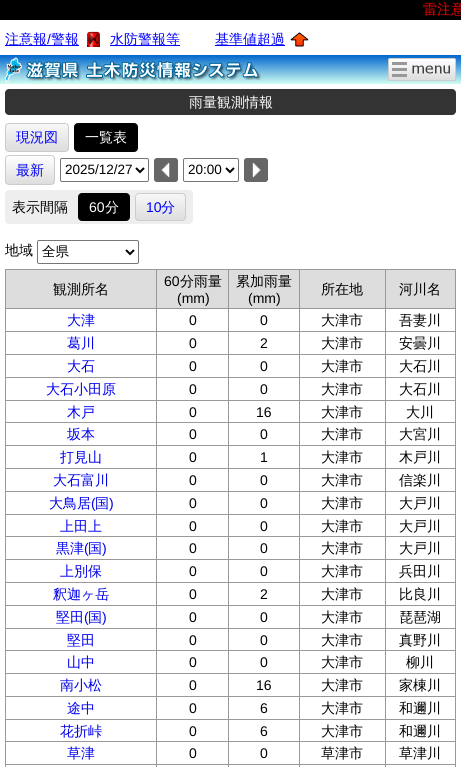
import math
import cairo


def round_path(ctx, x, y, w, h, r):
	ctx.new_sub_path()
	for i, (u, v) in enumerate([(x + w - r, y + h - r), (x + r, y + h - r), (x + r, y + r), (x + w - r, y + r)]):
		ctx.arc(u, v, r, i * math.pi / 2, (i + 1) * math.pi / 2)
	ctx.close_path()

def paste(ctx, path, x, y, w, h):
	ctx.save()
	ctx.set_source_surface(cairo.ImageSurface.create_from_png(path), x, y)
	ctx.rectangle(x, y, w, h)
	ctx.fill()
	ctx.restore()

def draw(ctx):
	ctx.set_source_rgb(1, 1, 1)
	ctx.paint()
	ctx.set_source_rgb(0, 0, 0)
	ctx.rectangle(0, 0, 461, 20)
	ctx.fill()
	ctx.select_font_face('WenQuanYi Zen Hei Medium')
	ctx.set_font_size(14)
	ctx.set_source_rgb(1, 0, 0)
	ctx.move_to(423, 14)
	ctx.show_text('雷注意')
	paste(ctx, 'media/1.png', 87, 31, 13, 16)
	ctx.set_source_rgb(0, 0, 1)
	ctx.rectangle(5, 45, 74, 1)
	ctx.fill()
	ctx.move_to(5, 44)
	ctx.show_text('注意報')
	ctx.select_font_face('Liberation Sans')
	ctx.move_to(47, 44)
	ctx.show_text('/')
	ctx.select_font_face('WenQuanYi Zen Hei Medium')
	ctx.move_to(51, 44)
	ctx.show_text('警報')
	ctx.rectangle(110, 45, 70, 1)
	ctx.fill()
	ctx.move_to(110, 44)
	ctx.show_text('水防警報等')
	paste(ctx, 'media/2.png', 290, 32, 19, 15)
	ctx.rectangle(215, 45, 70, 1)
	ctx.fill()
	ctx.move_to(215, 44)
	ctx.show_text('基準値超過')
	gradient = cairo.LinearGradient(0, 55, 0, 84)
	gradient.add_color_stop_rgba(0, 0, 0.4, 0.8, 1)
	gradient.add_color_stop_rgba(1, 0.816, 0.996, 0.949, 1)
	ctx.set_source(gradient)
	ctx.rectangle(0, 55, 461, 29)
	ctx.fill()
	paste(ctx, 'media/3.png', 5, 57, 256, 25)
	ctx.save()
	round_path(ctx, 388, 58, 68, 23, 2)
	ctx.clip()
	gradient = cairo.LinearGradient(389, 59, 389, 80)
	gradient.add_color_stop_rgba(0, 1, 1, 1, 1)
	gradient.add_color_stop_rgba(1, 0.867, 0.867, 0.867, 1)
	ctx.set_source(gradient)
	ctx.rectangle(388, 59, 68, 21)
	ctx.fill()
	ctx.restore()
	round_path(ctx, 388.5, 58.5, 67, 22, 1.5)
	ctx.set_source_rgb(0.8, 0.8, 0.8)
	ctx.set_line_width(1)
	ctx.stroke()
	paste(ctx, 'media/4.png', 392, 62, 58, 15)
	ctx.set_source_rgb(0.2, 0.2, 0.2)
	round_path(ctx, 5, 89, 451, 26, 4)
	ctx.fill()
	ctx.set_source_rgb(1, 1, 1)
	ctx.move_to(189, 107)
	ctx.show_text('雨量観測情報')
	ctx.save()
	round_path(ctx, 5, 123, 64, 29, 4)
	ctx.clip()
	gradient = cairo.LinearGradient(37, 124, 37, 151)
	gradient.add_color_stop_rgba(0, 0.969, 0.969, 0.969, 1)
	gradient.add_color_stop_rgba(1, 0.867, 0.867, 0.867, 1)
	ctx.set_source(gradient)
	ctx.rectangle(5, 124, 64, 27)
	ctx.fill()
	ctx.restore()
	round_path(ctx, 5.5, 123.5, 63, 28, 3.5)
	ctx.set_source_rgb(0.8, 0.8, 0.8)
	ctx.stroke()
	ctx.set_source_rgb(0, 0, 1)
	ctx.move_to(16, 142)
	ctx.show_text('現況図')
	ctx.set_source_rgb(0, 0, 0)
	round_path(ctx, 74.5, 123.5, 63, 28, 3.5)
	ctx.fill_preserve()
	ctx.stroke()
	ctx.set_source_rgb(1, 1, 1)
	ctx.move_to(85, 142)
	ctx.show_text('一覧表')
	ctx.save()
	round_path(ctx, 5, 155, 50, 30, 4)
	ctx.clip()
	gradient = cairo.LinearGradient(6, 156, 6, 184)
	gradient.add_color_stop_rgba(0, 1, 1, 1, 1)
	gradient.add_color_stop_rgba(1, 0.867, 0.867, 0.867, 1)
	ctx.set_source(gradient)
	ctx.rectangle(5, 156, 50, 28)
	ctx.fill()
	ctx.restore()
	round_path(ctx, 5.5, 155.5, 49, 29, 3.5)
	ctx.set_source_rgb(0.8, 0.8, 0.8)
	ctx.stroke()
	ctx.set_source_rgb(0, 0, 0.933)
	ctx.move_to(16, 175)
	ctx.show_text('最新')
	round_path(ctx, 60.5, 158.5, 88, 23, 1.5)
	ctx.set_source_rgb(0.463, 0.463, 0.463)
	ctx.stroke()
	ctx.new_path()
	ctx.move_to(136, 168)
	ctx.line_to(140, 172)
	ctx.line_to(144, 168)
	ctx.set_source_rgb(0, 0, 0)
	ctx.set_line_width(2)
	ctx.stroke()
	ctx.select_font_face('Liberation Sans')
	ctx.set_font_size(13.5)
	ctx.move_to(65, 174)
	ctx.show_text('2025/12/27')
	paste(ctx, 'media/5.png', 154, 158, 24, 24)
	round_path(ctx, 183.5, 158.5, 55, 23, 1.5)
	ctx.set_source_rgb(0.463, 0.463, 0.463)
	ctx.set_line_width(1)
	ctx.stroke()
	ctx.new_path()
	ctx.move_to(226, 168)
	ctx.line_to(230, 172)
	ctx.line_to(234, 168)
	ctx.set_source_rgb(0, 0, 0)
	ctx.set_line_width(2)
	ctx.stroke()
	ctx.move_to(188, 174)
	ctx.show_text('20:00')
	paste(ctx, 'media/6.png', 244, 158, 24, 24)
	ctx.set_source_rgb(0.933, 0.933, 0.933)
	round_path(ctx, 5, 190, 188, 34, 4)
	ctx.fill()
	ctx.select_font_face('WenQuanYi Zen Hei Medium')
	ctx.set_font_size(14)
	ctx.set_source_rgb(0, 0, 0)
	ctx.move_to(12, 212)
	ctx.show_text('表示間隔')
	round_path(ctx, 78.5, 193.5, 51, 27, 3.5)
	ctx.fill_preserve()
	ctx.set_line_width(1)
	ctx.stroke()
	ctx.select_font_face('Liberation Sans')
	ctx.set_source_rgb(1, 1, 1)
	ctx.move_to(89, 212)
	ctx.show_text('60')
	ctx.select_font_face('WenQuanYi Zen Hei Medium')
	ctx.move_to(105, 212)
	ctx.show_text('分')
	ctx.save()
	round_path(ctx, 135, 193, 51, 28, 4)
	ctx.clip()
	gradient = cairo.LinearGradient(161, 194, 161, 220)
	gradient.add_color_stop_rgba(0, 0.969, 0.969, 0.969, 1)
	gradient.add_color_stop_rgba(1, 0.867, 0.867, 0.867, 1)
	ctx.set_source(gradient)
	ctx.rectangle(135, 194, 51, 26)
	ctx.fill()
	ctx.restore()
	round_path(ctx, 135.5, 193.5, 50, 27, 3.5)
	ctx.set_source_rgb(0.8, 0.8, 0.8)
	ctx.stroke()
	ctx.select_font_face('Liberation Sans')
	ctx.set_source_rgb(0, 0, 1)
	ctx.move_to(146, 212)
	ctx.show_text('10')
	ctx.select_font_face('WenQuanYi Zen Hei Medium')
	ctx.move_to(161, 212)
	ctx.show_text('分')
	ctx.set_source_rgb(0, 0, 0)
	ctx.move_to(5, 255)
	ctx.show_text('地域')
	round_path(ctx, 37.5, 240.5, 101, 23, 1.5)
	ctx.set_source_rgb(0.463, 0.463, 0.463)
	ctx.stroke()
	ctx.new_path()
	ctx.move_to(126, 250)
	ctx.line_to(130, 254)
	ctx.line_to(134, 250)
	ctx.set_source_rgb(0, 0, 0)
	ctx.set_line_width(2)
	ctx.stroke()
	ctx.set_font_size(13.5)
	ctx.move_to(42, 256)
	ctx.show_text('全県')
	ctx.set_source_rgb(0.867, 0.867, 0.867)
	ctx.rectangle(6, 270, 150, 38)
	ctx.fill()
	ctx.set_source_rgb(0.6, 0.6, 0.6)
	ctx.rectangle(385, 269, 71, 1)
	ctx.rectangle(385, 308, 71, 1)
	ctx.rectangle(385, 331, 71, 1)
	ctx.rectangle(385, 354, 71, 1)
	ctx.rectangle(385, 377, 71, 1)
	ctx.rectangle(385, 400, 71, 1)
	ctx.rectangle(385, 422, 71, 1)
	ctx.rectangle(385, 445, 71, 1)
	ctx.rectangle(385, 468, 71, 1)
	ctx.rectangle(385, 491, 71, 1)
	ctx.rectangle(385, 514, 71, 1)
	ctx.rectangle(385, 536, 71, 1)
	ctx.rectangle(385, 559, 71, 1)
	ctx.rectangle(385, 582, 71, 1)
	ctx.rectangle(385, 605, 71, 1)
	ctx.rectangle(385, 628, 71, 1)
	ctx.rectangle(385, 650, 71, 1)
	ctx.rectangle(385, 673, 71, 1)
	ctx.rectangle(385, 696, 71, 1)
	ctx.rectangle(385, 719, 71, 1)
	ctx.rectangle(385, 741, 71, 1)
	ctx.rectangle(385, 764, 71, 1)
	ctx.rectangle(385, 764, 1, 3)
	ctx.rectangle(299, 764, 87, 1)
	ctx.rectangle(385, 741, 1, 24)
	ctx.rectangle(299, 741, 87, 1)
	ctx.rectangle(385, 719, 1, 23)
	ctx.rectangle(299, 719, 87, 1)
	ctx.rectangle(385, 696, 1, 24)
	ctx.rectangle(299, 696, 87, 1)
	ctx.rectangle(385, 673, 1, 24)
	ctx.rectangle(299, 673, 87, 1)
	ctx.rectangle(385, 650, 1, 24)
	ctx.rectangle(299, 650, 87, 1)
	ctx.rectangle(385, 628, 1, 23)
	ctx.rectangle(299, 628, 87, 1)
	ctx.rectangle(385, 605, 1, 24)
	ctx.rectangle(299, 605, 87, 1)
	ctx.rectangle(385, 582, 1, 24)
	ctx.rectangle(299, 582, 87, 1)
	ctx.rectangle(385, 559, 1, 24)
	ctx.rectangle(299, 559, 87, 1)
	ctx.rectangle(385, 536, 1, 24)
	ctx.rectangle(299, 536, 87, 1)
	ctx.rectangle(385, 514, 1, 23)
	ctx.rectangle(299, 514, 87, 1)
	ctx.rectangle(385, 491, 1, 24)
	ctx.rectangle(299, 491, 87, 1)
	ctx.rectangle(385, 468, 1, 24)
	ctx.rectangle(299, 468, 87, 1)
	ctx.rectangle(385, 445, 1, 24)
	ctx.rectangle(299, 445, 87, 1)
	ctx.rectangle(385, 422, 1, 24)
	ctx.rectangle(299, 422, 87, 1)
	ctx.rectangle(385, 400, 1, 23)
	ctx.rectangle(299, 400, 87, 1)
	ctx.rectangle(385, 377, 1, 24)
	ctx.rectangle(299, 377, 87, 1)
	ctx.rectangle(385, 354, 1, 24)
	ctx.rectangle(299, 354, 87, 1)
	ctx.rectangle(385, 331, 1, 24)
	ctx.rectangle(299, 331, 87, 1)
	ctx.rectangle(385, 308, 1, 24)
	ctx.rectangle(299, 308, 87, 1)
	ctx.rectangle(385, 269, 1, 40)
	ctx.rectangle(299, 269, 87, 1)
	ctx.rectangle(299, 764, 1, 3)
	ctx.rectangle(228, 764, 72, 1)
	ctx.rectangle(299, 741, 1, 24)
	ctx.rectangle(228, 741, 72, 1)
	ctx.rectangle(299, 719, 1, 23)
	ctx.rectangle(228, 719, 72, 1)
	ctx.rectangle(299, 696, 1, 24)
	ctx.rectangle(228, 696, 72, 1)
	ctx.rectangle(299, 673, 1, 24)
	ctx.rectangle(228, 673, 72, 1)
	ctx.rectangle(299, 650, 1, 24)
	ctx.rectangle(228, 650, 72, 1)
	ctx.rectangle(299, 628, 1, 23)
	ctx.rectangle(228, 628, 72, 1)
	ctx.rectangle(299, 605, 1, 24)
	ctx.rectangle(228, 605, 72, 1)
	ctx.rectangle(299, 582, 1, 24)
	ctx.rectangle(228, 582, 72, 1)
	ctx.rectangle(299, 559, 1, 24)
	ctx.rectangle(228, 559, 72, 1)
	ctx.rectangle(299, 536, 1, 24)
	ctx.rectangle(228, 536, 72, 1)
	ctx.rectangle(299, 514, 1, 23)
	ctx.rectangle(228, 514, 72, 1)
	ctx.rectangle(299, 491, 1, 24)
	ctx.rectangle(228, 491, 72, 1)
	ctx.rectangle(299, 468, 1, 24)
	ctx.rectangle(228, 468, 72, 1)
	ctx.rectangle(299, 445, 1, 24)
	ctx.rectangle(228, 445, 72, 1)
	ctx.rectangle(299, 422, 1, 24)
	ctx.rectangle(228, 422, 72, 1)
	ctx.rectangle(299, 400, 1, 23)
	ctx.rectangle(228, 400, 72, 1)
	ctx.rectangle(299, 377, 1, 24)
	ctx.rectangle(228, 377, 72, 1)
	ctx.rectangle(299, 354, 1, 24)
	ctx.rectangle(228, 354, 72, 1)
	ctx.rectangle(299, 331, 1, 24)
	ctx.rectangle(228, 331, 72, 1)
	ctx.rectangle(299, 308, 1, 24)
	ctx.rectangle(228, 308, 72, 1)
	ctx.rectangle(299, 269, 1, 40)
	ctx.rectangle(228, 269, 72, 1)
	ctx.rectangle(228, 764, 1, 3)
	ctx.rectangle(156, 764, 73, 1)
	ctx.rectangle(228, 741, 1, 24)
	ctx.rectangle(156, 741, 73, 1)
	ctx.rectangle(228, 719, 1, 23)
	ctx.rectangle(156, 719, 73, 1)
	ctx.rectangle(228, 696, 1, 24)
	ctx.rectangle(156, 696, 73, 1)
	ctx.rectangle(228, 673, 1, 24)
	ctx.rectangle(156, 673, 73, 1)
	ctx.rectangle(228, 650, 1, 24)
	ctx.rectangle(156, 650, 73, 1)
	ctx.rectangle(228, 628, 1, 23)
	ctx.rectangle(156, 628, 73, 1)
	ctx.rectangle(228, 605, 1, 24)
	ctx.rectangle(156, 605, 73, 1)
	ctx.rectangle(228, 582, 1, 24)
	ctx.rectangle(156, 582, 73, 1)
	ctx.rectangle(228, 559, 1, 24)
	ctx.rectangle(156, 559, 73, 1)
	ctx.rectangle(228, 536, 1, 24)
	ctx.rectangle(156, 536, 73, 1)
	ctx.rectangle(228, 514, 1, 23)
	ctx.rectangle(156, 514, 73, 1)
	ctx.rectangle(228, 491, 1, 24)
	ctx.rectangle(156, 491, 73, 1)
	ctx.rectangle(228, 468, 1, 24)
	ctx.rectangle(156, 468, 73, 1)
	ctx.rectangle(228, 445, 1, 24)
	ctx.rectangle(156, 445, 73, 1)
	ctx.rectangle(228, 422, 1, 24)
	ctx.rectangle(156, 422, 73, 1)
	ctx.rectangle(228, 400, 1, 23)
	ctx.rectangle(156, 400, 73, 1)
	ctx.rectangle(228, 377, 1, 24)
	ctx.rectangle(156, 377, 73, 1)
	ctx.rectangle(228, 354, 1, 24)
	ctx.rectangle(156, 354, 73, 1)
	ctx.rectangle(228, 331, 1, 24)
	ctx.rectangle(156, 331, 73, 1)
	ctx.rectangle(228, 308, 1, 24)
	ctx.rectangle(156, 308, 73, 1)
	ctx.rectangle(228, 269, 1, 40)
	ctx.rectangle(156, 269, 73, 1)
	ctx.rectangle(156, 764, 1, 3)
	ctx.rectangle(5, 764, 152, 1)
	ctx.rectangle(156, 741, 1, 24)
	ctx.rectangle(5, 741, 152, 1)
	ctx.rectangle(156, 719, 1, 23)
	ctx.rectangle(5, 719, 152, 1)
	ctx.rectangle(156, 696, 1, 24)
	ctx.rectangle(5, 696, 152, 1)
	ctx.rectangle(156, 673, 1, 24)
	ctx.rectangle(5, 673, 152, 1)
	ctx.rectangle(156, 650, 1, 24)
	ctx.rectangle(5, 650, 152, 1)
	ctx.rectangle(156, 628, 1, 23)
	ctx.rectangle(5, 628, 152, 1)
	ctx.rectangle(156, 605, 1, 24)
	ctx.rectangle(5, 605, 152, 1)
	ctx.rectangle(156, 582, 1, 24)
	ctx.rectangle(5, 582, 152, 1)
	ctx.rectangle(156, 559, 1, 24)
	ctx.rectangle(5, 559, 152, 1)
	ctx.rectangle(156, 536, 1, 24)
	ctx.rectangle(5, 536, 152, 1)
	ctx.rectangle(156, 514, 1, 23)
	ctx.rectangle(5, 514, 152, 1)
	ctx.rectangle(156, 491, 1, 24)
	ctx.rectangle(5, 491, 152, 1)
	ctx.rectangle(156, 468, 1, 24)
	ctx.rectangle(5, 468, 152, 1)
	ctx.rectangle(156, 445, 1, 24)
	ctx.rectangle(5, 445, 152, 1)
	ctx.rectangle(156, 422, 1, 24)
	ctx.rectangle(5, 422, 152, 1)
	ctx.rectangle(156, 400, 1, 23)
	ctx.rectangle(5, 400, 152, 1)
	ctx.rectangle(156, 377, 1, 24)
	ctx.rectangle(5, 377, 152, 1)
	ctx.rectangle(156, 354, 1, 24)
	ctx.rectangle(5, 354, 152, 1)
	ctx.rectangle(156, 331, 1, 24)
	ctx.rectangle(5, 331, 152, 1)
	ctx.rectangle(156, 308, 1, 24)
	ctx.rectangle(5, 308, 152, 1)
	ctx.rectangle(156, 269, 1, 40)
	ctx.rectangle(5, 269, 152, 1)
	ctx.rectangle(5, 764, 1, 3)
	ctx.rectangle(5, 741, 1, 24)
	ctx.rectangle(5, 719, 1, 23)
	ctx.rectangle(5, 696, 1, 24)
	ctx.rectangle(5, 673, 1, 24)
	ctx.rectangle(5, 650, 1, 24)
	ctx.rectangle(5, 628, 1, 23)
	ctx.rectangle(5, 605, 1, 24)
	ctx.rectangle(5, 582, 1, 24)
	ctx.rectangle(5, 559, 1, 24)
	ctx.rectangle(5, 536, 1, 24)
	ctx.rectangle(5, 514, 1, 23)
	ctx.rectangle(5, 491, 1, 24)
	ctx.rectangle(5, 468, 1, 24)
	ctx.rectangle(5, 445, 1, 24)
	ctx.rectangle(5, 422, 1, 24)
	ctx.rectangle(5, 400, 1, 23)
	ctx.rectangle(5, 377, 1, 24)
	ctx.rectangle(5, 354, 1, 24)
	ctx.rectangle(5, 331, 1, 24)
	ctx.rectangle(5, 308, 1, 24)
	ctx.rectangle(5, 269, 1, 40)
	ctx.fill()
	ctx.set_font_size(14)
	ctx.set_source_rgb(0, 0, 0)
	ctx.move_to(53, 294)
	ctx.show_text('観測所名')
	ctx.set_source_rgb(0.867, 0.867, 0.867)
	ctx.rectangle(157, 270, 71, 38)
	ctx.fill()
	ctx.select_font_face('Liberation Sans')
	ctx.set_source_rgb(0, 0, 0)
	ctx.move_to(164, 286)
	ctx.show_text('60')
	ctx.select_font_face('WenQuanYi Zen Hei Medium')
	ctx.move_to(180, 286)
	ctx.show_text('分雨量')
	ctx.select_font_face('Liberation Sans')
	ctx.move_to(177, 303)
	ctx.show_text('(mm)')
	ctx.set_source_rgb(0.867, 0.867, 0.867)
	ctx.rectangle(229, 270, 70, 38)
	ctx.fill()
	ctx.select_font_face('WenQuanYi Zen Hei Medium')
	ctx.set_source_rgb(0, 0, 0)
	ctx.move_to(236, 286)
	ctx.show_text('累加雨量')
	ctx.select_font_face('Liberation Sans')
	ctx.move_to(248, 303)
	ctx.show_text('(mm)')
	ctx.set_source_rgb(0.867, 0.867, 0.867)
	ctx.rectangle(300, 270, 85, 38)
	ctx.fill()
	ctx.select_font_face('WenQuanYi Zen Hei Medium')
	ctx.set_source_rgb(0, 0, 0)
	ctx.move_to(321, 294)
	ctx.show_text('所在地')
	ctx.set_source_rgb(0.867, 0.867, 0.867)
	ctx.rectangle(386, 270, 69, 38)
	ctx.fill()
	ctx.set_source_rgb(0.6, 0.6, 0.6)
	ctx.rectangle(455, 764, 1, 3)
	ctx.rectangle(455, 741, 1, 24)
	ctx.rectangle(455, 719, 1, 23)
	ctx.rectangle(455, 696, 1, 24)
	ctx.rectangle(455, 673, 1, 24)
	ctx.rectangle(455, 650, 1, 24)
	ctx.rectangle(455, 628, 1, 23)
	ctx.rectangle(455, 605, 1, 24)
	ctx.rectangle(455, 582, 1, 24)
	ctx.rectangle(455, 559, 1, 24)
	ctx.rectangle(455, 536, 1, 24)
	ctx.rectangle(455, 514, 1, 23)
	ctx.rectangle(455, 491, 1, 24)
	ctx.rectangle(455, 468, 1, 24)
	ctx.rectangle(455, 445, 1, 24)
	ctx.rectangle(455, 422, 1, 24)
	ctx.rectangle(455, 400, 1, 23)
	ctx.rectangle(455, 377, 1, 24)
	ctx.rectangle(455, 354, 1, 24)
	ctx.rectangle(455, 331, 1, 24)
	ctx.rectangle(455, 308, 1, 24)
	ctx.rectangle(455, 269, 1, 40)
	ctx.fill()
	ctx.set_source_rgb(0, 0, 0)
	ctx.move_to(399, 294)
	ctx.show_text('河川名')
	ctx.set_source_rgb(0, 0, 0.933)
	ctx.move_to(67, 325)
	ctx.show_text('大津')
	ctx.select_font_face('Liberation Sans')
	ctx.set_source_rgb(0, 0, 0)
	ctx.move_to(189, 325)
	ctx.show_text('0')
	ctx.move_to(260, 325)
	ctx.show_text('0')
	ctx.select_font_face('WenQuanYi Zen Hei Medium')
	ctx.move_to(321, 325)
	ctx.show_text('大津市')
	ctx.move_to(399, 325)
	ctx.show_text('吾妻川')
	ctx.set_source_rgb(0, 0, 0.933)
	ctx.move_to(67, 348)
	ctx.show_text('葛川')
	ctx.select_font_face('Liberation Sans')
	ctx.set_source_rgb(0, 0, 0)
	ctx.move_to(189, 348)
	ctx.show_text('0')
	ctx.move_to(260, 348)
	ctx.show_text('2')
	ctx.select_font_face('WenQuanYi Zen Hei Medium')
	ctx.move_to(321, 348)
	ctx.show_text('大津市')
	ctx.move_to(399, 348)
	ctx.show_text('安曇川')
	ctx.set_source_rgb(0, 0, 0.933)
	ctx.move_to(67, 371)
	ctx.show_text('大石')
	ctx.select_font_face('Liberation Sans')
	ctx.set_source_rgb(0, 0, 0)
	ctx.move_to(189, 371)
	ctx.show_text('0')
	ctx.move_to(260, 371)
	ctx.show_text('0')
	ctx.select_font_face('WenQuanYi Zen Hei Medium')
	ctx.move_to(321, 371)
	ctx.show_text('大津市')
	ctx.move_to(399, 371)
	ctx.show_text('大石川')
	ctx.set_source_rgb(0, 0, 0.933)
	ctx.move_to(46, 394)
	ctx.show_text('大石小田原')
	ctx.select_font_face('Liberation Sans')
	ctx.set_source_rgb(0, 0, 0)
	ctx.move_to(189, 394)
	ctx.show_text('0')
	ctx.move_to(260, 394)
	ctx.show_text('0')
	ctx.select_font_face('WenQuanYi Zen Hei Medium')
	ctx.move_to(321, 394)
	ctx.show_text('大津市')
	ctx.move_to(399, 394)
	ctx.show_text('大石川')
	ctx.set_source_rgb(0, 0, 0.933)
	ctx.move_to(67, 417)
	ctx.show_text('木戸')
	ctx.select_font_face('Liberation Sans')
	ctx.set_source_rgb(0, 0, 0)
	ctx.move_to(189, 417)
	ctx.show_text('0')
	ctx.move_to(256, 417)
	ctx.show_text('16')
	ctx.select_font_face('WenQuanYi Zen Hei Medium')
	ctx.move_to(321, 417)
	ctx.show_text('大津市')
	ctx.move_to(406, 417)
	ctx.show_text('大川')
	ctx.set_source_rgb(0, 0, 0.933)
	ctx.move_to(67, 439)
	ctx.show_text('坂本')
	ctx.select_font_face('Liberation Sans')
	ctx.set_source_rgb(0, 0, 0)
	ctx.move_to(189, 439)
	ctx.show_text('0')
	ctx.move_to(260, 439)
	ctx.show_text('0')
	ctx.select_font_face('WenQuanYi Zen Hei Medium')
	ctx.move_to(321, 439)
	ctx.show_text('大津市')
	ctx.move_to(399, 439)
	ctx.show_text('大宮川')
	ctx.set_source_rgb(0, 0, 0.933)
	ctx.move_to(60, 462)
	ctx.show_text('打見山')
	ctx.select_font_face('Liberation Sans')
	ctx.set_source_rgb(0, 0, 0)
	ctx.move_to(189, 462)
	ctx.show_text('0')
	ctx.move_to(260, 462)
	ctx.show_text('1')
	ctx.select_font_face('WenQuanYi Zen Hei Medium')
	ctx.move_to(321, 462)
	ctx.show_text('大津市')
	ctx.move_to(399, 462)
	ctx.show_text('木戸川')
	ctx.set_source_rgb(0, 0, 0.933)
	ctx.move_to(53, 485)
	ctx.show_text('大石富川')
	ctx.select_font_face('Liberation Sans')
	ctx.set_source_rgb(0, 0, 0)
	ctx.move_to(189, 485)
	ctx.show_text('0')
	ctx.move_to(260, 485)
	ctx.show_text('0')
	ctx.select_font_face('WenQuanYi Zen Hei Medium')
	ctx.move_to(321, 485)
	ctx.show_text('大津市')
	ctx.move_to(399, 485)
	ctx.show_text('信楽川')
	ctx.set_source_rgb(0, 0, 0.933)
	ctx.move_to(49, 508)
	ctx.show_text('大鳥居')
	ctx.select_font_face('Liberation Sans')
	ctx.move_to(91, 508)
	ctx.show_text('(')
	ctx.select_font_face('WenQuanYi Zen Hei Medium')
	ctx.move_to(95, 508)
	ctx.show_text('国')
	ctx.select_font_face('Liberation Sans')
	ctx.move_to(109, 508)
	ctx.show_text(')')
	ctx.set_source_rgb(0, 0, 0)
	ctx.move_to(189, 508)
	ctx.show_text('0')
	ctx.move_to(260, 508)
	ctx.show_text('0')
	ctx.select_font_face('WenQuanYi Zen Hei Medium')
	ctx.move_to(321, 508)
	ctx.show_text('大津市')
	ctx.move_to(399, 508)
	ctx.show_text('大戸川')
	ctx.set_source_rgb(0, 0, 0.933)
	ctx.move_to(60, 531)
	ctx.show_text('上田上')
	ctx.select_font_face('Liberation Sans')
	ctx.set_source_rgb(0, 0, 0)
	ctx.move_to(189, 531)
	ctx.show_text('0')
	ctx.move_to(260, 531)
	ctx.show_text('0')
	ctx.select_font_face('WenQuanYi Zen Hei Medium')
	ctx.move_to(321, 531)
	ctx.show_text('大津市')
	ctx.move_to(399, 531)
	ctx.show_text('大戸川')
	ctx.set_source_rgb(0, 0, 0.933)
	ctx.move_to(56, 553)
	ctx.show_text('黒津')
	ctx.select_font_face('Liberation Sans')
	ctx.move_to(84, 553)
	ctx.show_text('(')
	ctx.select_font_face('WenQuanYi Zen Hei Medium')
	ctx.move_to(88, 553)
	ctx.show_text('国')
	ctx.select_font_face('Liberation Sans')
	ctx.move_to(102, 553)
	ctx.show_text(')')
	ctx.set_source_rgb(0, 0, 0)
	ctx.move_to(189, 553)
	ctx.show_text('0')
	ctx.move_to(260, 553)
	ctx.show_text('0')
	ctx.select_font_face('WenQuanYi Zen Hei Medium')
	ctx.move_to(321, 553)
	ctx.show_text('大津市')
	ctx.move_to(399, 553)
	ctx.show_text('大戸川')
	ctx.set_source_rgb(0, 0, 0.933)
	ctx.move_to(60, 576)
	ctx.show_text('上別保')
	ctx.select_font_face('Liberation Sans')
	ctx.set_source_rgb(0, 0, 0)
	ctx.move_to(189, 576)
	ctx.show_text('0')
	ctx.move_to(260, 576)
	ctx.show_text('0')
	ctx.select_font_face('WenQuanYi Zen Hei Medium')
	ctx.move_to(321, 576)
	ctx.show_text('大津市')
	ctx.move_to(399, 576)
	ctx.show_text('兵田川')
	ctx.set_source_rgb(0, 0, 0.933)
	ctx.move_to(53, 599)
	ctx.show_text('釈迦ヶ岳')
	ctx.select_font_face('Liberation Sans')
	ctx.set_source_rgb(0, 0, 0)
	ctx.move_to(189, 599)
	ctx.show_text('0')
	ctx.move_to(260, 599)
	ctx.show_text('2')
	ctx.select_font_face('WenQuanYi Zen Hei Medium')
	ctx.move_to(321, 599)
	ctx.show_text('大津市')
	ctx.move_to(399, 599)
	ctx.show_text('比良川')
	ctx.set_source_rgb(0, 0, 0.933)
	ctx.move_to(56, 622)
	ctx.show_text('堅田')
	ctx.select_font_face('Liberation Sans')
	ctx.move_to(84, 622)
	ctx.show_text('(')
	ctx.select_font_face('WenQuanYi Zen Hei Medium')
	ctx.move_to(88, 622)
	ctx.show_text('国')
	ctx.select_font_face('Liberation Sans')
	ctx.move_to(102, 622)
	ctx.show_text(')')
	ctx.set_source_rgb(0, 0, 0)
	ctx.move_to(189, 622)
	ctx.show_text('0')
	ctx.move_to(260, 622)
	ctx.show_text('0')
	ctx.select_font_face('WenQuanYi Zen Hei Medium')
	ctx.move_to(321, 622)
	ctx.show_text('大津市')
	ctx.move_to(399, 622)
	ctx.show_text('琵琶湖')
	ctx.set_source_rgb(0, 0, 0.933)
	ctx.move_to(67, 645)
	ctx.show_text('堅田')
	ctx.select_font_face('Liberation Sans')
	ctx.set_source_rgb(0, 0, 0)
	ctx.move_to(189, 645)
	ctx.show_text('0')
	ctx.move_to(260, 645)
	ctx.show_text('0')
	ctx.select_font_face('WenQuanYi Zen Hei Medium')
	ctx.move_to(321, 645)
	ctx.show_text('大津市')
	ctx.move_to(399, 645)
	ctx.show_text('真野川')
	ctx.set_source_rgb(0, 0, 0.933)
	ctx.move_to(67, 667)
	ctx.show_text('山中')
	ctx.select_font_face('Liberation Sans')
	ctx.set_source_rgb(0, 0, 0)
	ctx.move_to(189, 667)
	ctx.show_text('0')
	ctx.move_to(260, 667)
	ctx.show_text('0')
	ctx.select_font_face('WenQuanYi Zen Hei Medium')
	ctx.move_to(321, 667)
	ctx.show_text('大津市')
	ctx.move_to(406, 667)
	ctx.show_text('柳川')
	ctx.set_source_rgb(0, 0, 0.933)
	ctx.move_to(60, 690)
	ctx.show_text('南小松')
	ctx.select_font_face('Liberation Sans')
	ctx.set_source_rgb(0, 0, 0)
	ctx.move_to(189, 690)
	ctx.show_text('0')
	ctx.move_to(256, 690)
	ctx.show_text('16')
	ctx.select_font_face('WenQuanYi Zen Hei Medium')
	ctx.move_to(321, 690)
	ctx.show_text('大津市')
	ctx.move_to(399, 690)
	ctx.show_text('家棟川')
	ctx.set_source_rgb(0, 0, 0.933)
	ctx.move_to(67, 713)
	ctx.show_text('途中')
	ctx.select_font_face('Liberation Sans')
	ctx.set_source_rgb(0, 0, 0)
	ctx.move_to(189, 713)
	ctx.show_text('0')
	ctx.move_to(260, 713)
	ctx.show_text('6')
	ctx.select_font_face('WenQuanYi Zen Hei Medium')
	ctx.move_to(321, 713)
	ctx.show_text('大津市')
	ctx.move_to(399, 713)
	ctx.show_text('和邇川')
	ctx.set_source_rgb(0, 0, 0.933)
	ctx.move_to(60, 736)
	ctx.show_text('花折峠')
	ctx.select_font_face('Liberation Sans')
	ctx.set_source_rgb(0, 0, 0)
	ctx.move_to(189, 736)
	ctx.show_text('0')
	ctx.move_to(260, 736)
	ctx.show_text('6')
	ctx.select_font_face('WenQuanYi Zen Hei Medium')
	ctx.move_to(321, 736)
	ctx.show_text('大津市')
	ctx.move_to(399, 736)
	ctx.show_text('和邇川')
	ctx.set_source_rgb(0, 0, 0.933)
	ctx.move_to(67, 758)
	ctx.show_text('草津')
	ctx.select_font_face('Liberation Sans')
	ctx.set_source_rgb(0, 0, 0)
	ctx.move_to(189, 758)
	ctx.show_text('0')
	ctx.move_to(260, 758)
	ctx.show_text('0')
	ctx.select_font_face('WenQuanYi Zen Hei Medium')
	ctx.move_to(321, 758)
	ctx.show_text('草津市')
	ctx.move_to(399, 758)
	ctx.show_text('草津川')


surface = cairo.ImageSurface(cairo.FORMAT_RGB24, 461, 767)
ctx = cairo.Context(surface)
options = cairo.FontOptions()
options.set_hint_metrics(cairo.HINT_METRICS_OFF)
options.set_hint_style(cairo.HINT_STYLE_NONE)
ctx.set_font_options(options)
ctx.set_miter_limit(4)
draw(ctx)
surface.write_to_png('image.png')
